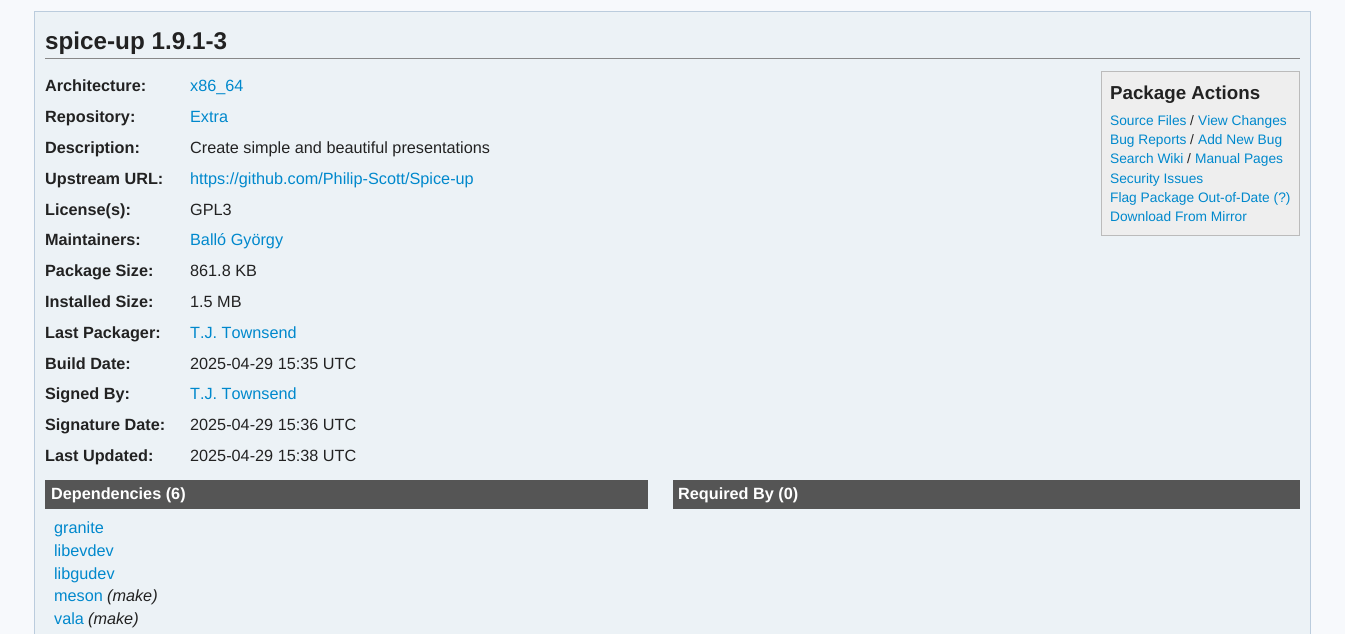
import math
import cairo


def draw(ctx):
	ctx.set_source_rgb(0.965, 0.976, 0.988)
	ctx.paint()
	ctx.set_source_rgb(0.925, 0.949, 0.961)
	ctx.rectangle(34.5, 11.5, 1276, 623)
	ctx.fill_preserve()
	ctx.set_source_rgb(0.733, 0.8, 0.867)
	ctx.set_line_width(1)
	ctx.stroke()
	ctx.set_source_rgb(0.533, 0.533, 0.533)
	ctx.rectangle(45, 58, 1255, 1)
	ctx.fill()
	ctx.select_font_face('Liberation Sans', cairo.FONT_SLANT_NORMAL, cairo.FONT_WEIGHT_BOLD)
	ctx.set_font_size(24.25)
	ctx.set_source_rgb(0.133, 0.133, 0.133)
	ctx.move_to(45, 49)
	ctx.show_text('spice-up 1.9.1-3')
	ctx.set_font_size(16.25)
	ctx.move_to(45, 91)
	ctx.show_text('Architecture:')
	ctx.select_font_face('Liberation Sans')
	ctx.set_source_rgb(0, 0.533, 0.8)
	ctx.move_to(190, 91)
	ctx.show_text('x86_64')
	ctx.select_font_face('Liberation Sans', cairo.FONT_SLANT_NORMAL, cairo.FONT_WEIGHT_BOLD)
	ctx.set_source_rgb(0.133, 0.133, 0.133)
	ctx.move_to(45, 122)
	ctx.show_text('Repository:')
	ctx.select_font_face('Liberation Sans')
	ctx.set_source_rgb(0, 0.533, 0.8)
	ctx.move_to(190, 122)
	ctx.show_text('Extra')
	ctx.select_font_face('Liberation Sans', cairo.FONT_SLANT_NORMAL, cairo.FONT_WEIGHT_BOLD)
	ctx.set_source_rgb(0.133, 0.133, 0.133)
	ctx.move_to(45, 153)
	ctx.show_text('Description:')
	ctx.select_font_face('Liberation Sans')
	ctx.move_to(190, 153)
	ctx.show_text('Create simple and beautiful presentations')
	ctx.select_font_face('Liberation Sans', cairo.FONT_SLANT_NORMAL, cairo.FONT_WEIGHT_BOLD)
	ctx.move_to(45, 184)
	ctx.show_text('Upstream URL:')
	ctx.select_font_face('Liberation Sans')
	ctx.set_source_rgb(0, 0.533, 0.8)
	ctx.move_to(190, 184)
	ctx.show_text('https://github.com/Philip-Scott/Spice-up')
	ctx.select_font_face('Liberation Sans', cairo.FONT_SLANT_NORMAL, cairo.FONT_WEIGHT_BOLD)
	ctx.set_source_rgb(0.133, 0.133, 0.133)
	ctx.move_to(45, 215)
	ctx.show_text('License(s):')
	ctx.select_font_face('Liberation Sans')
	ctx.move_to(190, 215)
	ctx.show_text('GPL3')
	ctx.select_font_face('Liberation Sans', cairo.FONT_SLANT_NORMAL, cairo.FONT_WEIGHT_BOLD)
	ctx.move_to(45, 245)
	ctx.show_text('Maintainers:')
	ctx.select_font_face('Liberation Sans')
	ctx.set_source_rgb(0, 0.533, 0.8)
	ctx.move_to(190, 245)
	ctx.show_text('Balló György')
	ctx.select_font_face('Liberation Sans', cairo.FONT_SLANT_NORMAL, cairo.FONT_WEIGHT_BOLD)
	ctx.set_source_rgb(0.133, 0.133, 0.133)
	ctx.move_to(45, 276)
	ctx.show_text('Package Size:')
	ctx.select_font_face('Liberation Sans')
	ctx.move_to(190, 276)
	ctx.show_text('861.8 KB')
	ctx.select_font_face('Liberation Sans', cairo.FONT_SLANT_NORMAL, cairo.FONT_WEIGHT_BOLD)
	ctx.move_to(45, 307)
	ctx.show_text('Installed Size:')
	ctx.select_font_face('Liberation Sans')
	ctx.move_to(190, 307)
	ctx.show_text('1.5 MB')
	ctx.select_font_face('Liberation Sans', cairo.FONT_SLANT_NORMAL, cairo.FONT_WEIGHT_BOLD)
	ctx.move_to(45, 338)
	ctx.show_text('Last Packager:')
	ctx.select_font_face('Liberation Sans')
	ctx.set_source_rgb(0, 0.533, 0.8)
	ctx.move_to(190, 338)
	ctx.show_text('T.J. Townsend')
	ctx.select_font_face('Liberation Sans', cairo.FONT_SLANT_NORMAL, cairo.FONT_WEIGHT_BOLD)
	ctx.set_source_rgb(0.133, 0.133, 0.133)
	ctx.move_to(45, 369)
	ctx.show_text('Build Date:')
	ctx.select_font_face('Liberation Sans')
	ctx.move_to(190, 369)
	ctx.show_text('2025-04-29 15:35 UTC')
	ctx.select_font_face('Liberation Sans', cairo.FONT_SLANT_NORMAL, cairo.FONT_WEIGHT_BOLD)
	ctx.move_to(45, 399)
	ctx.show_text('Signed By:')
	ctx.select_font_face('Liberation Sans')
	ctx.set_source_rgb(0, 0.533, 0.8)
	ctx.move_to(190, 399)
	ctx.show_text('T.J. Townsend')
	ctx.select_font_face('Liberation Sans', cairo.FONT_SLANT_NORMAL, cairo.FONT_WEIGHT_BOLD)
	ctx.set_source_rgb(0.133, 0.133, 0.133)
	ctx.move_to(45, 430)
	ctx.show_text('Signature Date:')
	ctx.select_font_face('Liberation Sans')
	ctx.move_to(190, 430)
	ctx.show_text('2025-04-29 15:36 UTC')
	ctx.select_font_face('Liberation Sans', cairo.FONT_SLANT_NORMAL, cairo.FONT_WEIGHT_BOLD)
	ctx.move_to(45, 461)
	ctx.show_text('Last Updated:')
	ctx.select_font_face('Liberation Sans')
	ctx.move_to(190, 461)
	ctx.show_text('2025-04-29 15:38 UTC')
	ctx.set_source_rgb(0.933, 0.933, 0.933)
	ctx.rectangle(1101.5, 71.5, 198, 164)
	ctx.fill_preserve()
	ctx.set_source_rgb(0.733, 0.733, 0.733)
	ctx.stroke()
	ctx.select_font_face('Liberation Sans', cairo.FONT_SLANT_NORMAL, cairo.FONT_WEIGHT_BOLD)
	ctx.set_font_size(18.75)
	ctx.set_source_rgb(0.133, 0.133, 0.133)
	ctx.move_to(1110, 99)
	ctx.show_text('Package Actions')
	ctx.select_font_face('Liberation Sans')
	ctx.set_font_size(13.75)
	ctx.set_source_rgb(0, 0.533, 0.8)
	ctx.move_to(1110, 125)
	ctx.show_text('Source Files')
	ctx.set_source_rgb(0.133, 0.133, 0.133)
	ctx.move_to(1190, 125)
	ctx.show_text('/')
	ctx.set_source_rgb(0, 0.533, 0.8)
	ctx.move_to(1198, 125)
	ctx.show_text('View Changes')
	ctx.move_to(1110, 144)
	ctx.show_text('Bug Reports')
	ctx.set_source_rgb(0.133, 0.133, 0.133)
	ctx.move_to(1190, 144)
	ctx.show_text('/')
	ctx.set_source_rgb(0, 0.533, 0.8)
	ctx.move_to(1198, 144)
	ctx.show_text('Add New Bug')
	ctx.move_to(1110, 163)
	ctx.show_text('Search Wiki')
	ctx.set_source_rgb(0.133, 0.133, 0.133)
	ctx.move_to(1187, 163)
	ctx.show_text('/')
	ctx.set_source_rgb(0, 0.533, 0.8)
	for x, y, s in [
		(1195, 163, 'Manual Pages'),
		(1110, 183, 'Security Issues'),
		(1110, 202, 'Flag Package Out-of-Date (?)'),
		(1110, 221, 'Download From Mirror'),
	]:
		ctx.move_to(x, y)
		ctx.show_text(s)
	ctx.set_source_rgb(0.333, 0.333, 0.333)
	ctx.rectangle(45, 480, 603, 29)
	ctx.fill()
	ctx.select_font_face('Liberation Sans', cairo.FONT_SLANT_NORMAL, cairo.FONT_WEIGHT_BOLD)
	ctx.set_font_size(16.25)
	ctx.set_source_rgb(1, 1, 1)
	ctx.move_to(51, 499)
	ctx.show_text('Dependencies (6)')
	ctx.select_font_face('Liberation Sans')
	ctx.set_source_rgb(0, 0.533, 0.8)
	for x, y, s in [
		(54, 533, 'granite'),
		(54, 556, 'libevdev'),
		(54, 579, 'libgudev'),
		(54, 601, 'meson'),
	]:
		ctx.move_to(x, y)
		ctx.show_text(s)
	ctx.select_font_face('Liberation Sans', cairo.FONT_SLANT_ITALIC)
	ctx.set_source_rgb(0.133, 0.133, 0.133)
	ctx.move_to(107, 601)
	ctx.show_text('(make)')
	ctx.select_font_face('Liberation Sans')
	ctx.set_source_rgb(0, 0.533, 0.8)
	ctx.move_to(54, 624)
	ctx.show_text('vala')
	ctx.select_font_face('Liberation Sans', cairo.FONT_SLANT_ITALIC)
	ctx.set_source_rgb(0.133, 0.133, 0.133)
	ctx.move_to(88, 624)
	ctx.show_text('(make)')
	ctx.set_source_rgb(0.333, 0.333, 0.333)
	ctx.rectangle(673, 480, 627, 29)
	ctx.fill()
	ctx.select_font_face('Liberation Sans', cairo.FONT_SLANT_NORMAL, cairo.FONT_WEIGHT_BOLD)
	ctx.set_source_rgb(1, 1, 1)
	ctx.move_to(678, 499)
	ctx.show_text('Required By (0)')


surface = cairo.ImageSurface(cairo.FORMAT_RGB24, 1345, 634)
ctx = cairo.Context(surface)
options = cairo.FontOptions()
options.set_hint_metrics(cairo.HINT_METRICS_OFF)
options.set_hint_style(cairo.HINT_STYLE_NONE)
ctx.set_font_options(options)
ctx.set_miter_limit(4)
draw(ctx)
surface.write_to_png('image.png')
